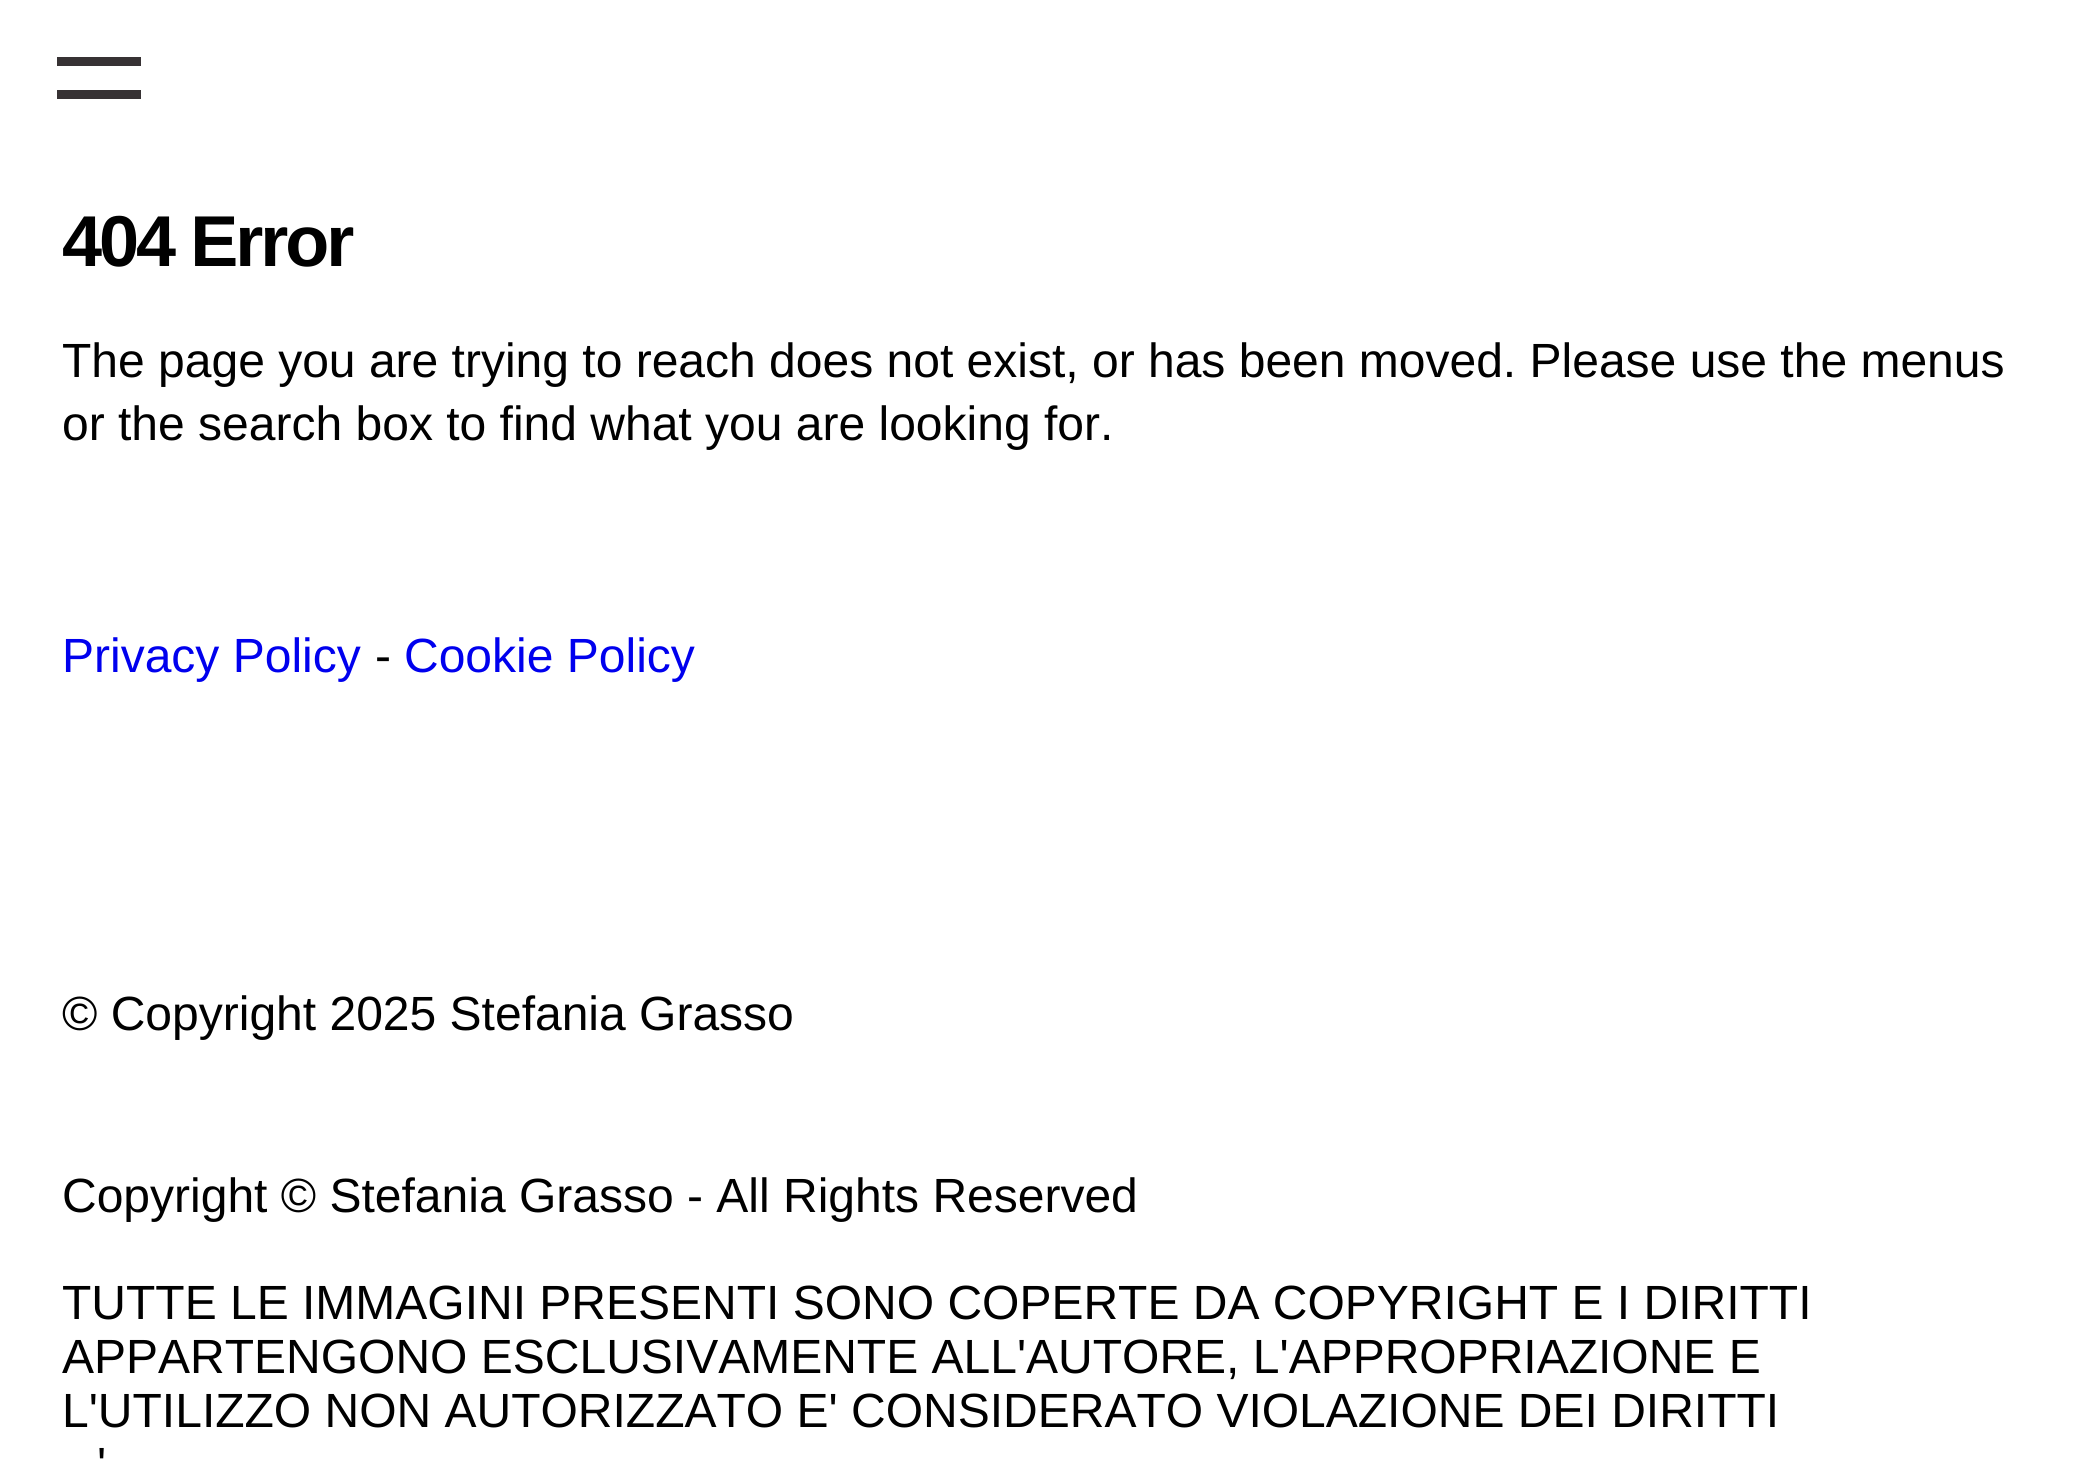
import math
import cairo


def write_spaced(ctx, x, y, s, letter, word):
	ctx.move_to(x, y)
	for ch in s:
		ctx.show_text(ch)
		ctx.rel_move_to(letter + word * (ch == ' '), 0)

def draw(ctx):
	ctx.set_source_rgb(1, 1, 1)
	ctx.paint()
	ctx.set_source_rgb(0.216, 0.196, 0.204)
	ctx.rectangle(57, 57, 84, 9)
	ctx.fill()
	ctx.rectangle(57, 90, 84, 9)
	ctx.fill()
	ctx.select_font_face('Liberation Sans', cairo.FONT_SLANT_NORMAL, cairo.FONT_WEIGHT_BOLD)
	ctx.set_font_size(72)
	ctx.set_source_rgb(0, 0, 0)
	write_spaced(ctx, 62, 266, '404 Error', -3, 0)
	ctx.select_font_face('Liberation Sans')
	ctx.set_font_size(48)
	ctx.move_to(62, 377)
	ctx.show_text('The page you are trying to reach does not exist, or has been moved. Please use the menus')
	ctx.move_to(62, 440)
	ctx.show_text('or the search box to find what you are looking for.')
	ctx.set_source_rgb(0, 0, 0.933)
	ctx.move_to(62, 672)
	ctx.show_text('Privacy Policy')
	ctx.set_source_rgb(0, 0, 0)
	ctx.move_to(375, 672)
	ctx.show_text('-')
	ctx.set_source_rgb(0, 0, 0.933)
	ctx.move_to(404, 672)
	ctx.show_text('Cookie Policy')
	ctx.set_source_rgb(0, 0, 0)
	for x, y, s in [
		(62, 1030, '© Copyright 2025 Stefania Grasso'),
		(62, 1212, 'Copyright © Stefania Grasso - All Rights Reserved'),
		(62, 1319, 'TUTTE LE IMMAGINI PRESENTI SONO COPERTE DA COPYRIGHT E I DIRITTI'),
		(62, 1373, 'APPARTENGONO ESCLUSIVAMENTE ALL\'AUTORE, L\'APPROPRIAZIONE E'),
		(62, 1427, 'L\'UTILIZZO NON AUTORIZZATO E\' CONSIDERATO VIOLAZIONE DEI DIRITTI'),
		(97, 1481, '\''),
	]:
		ctx.move_to(x, y)
		ctx.show_text(s)


surface = cairo.ImageSurface(cairo.FORMAT_RGB24, 2080, 1468)
ctx = cairo.Context(surface)
options = cairo.FontOptions()
options.set_hint_metrics(cairo.HINT_METRICS_OFF)
options.set_hint_style(cairo.HINT_STYLE_NONE)
ctx.set_font_options(options)
ctx.set_miter_limit(4)
draw(ctx)
surface.write_to_png('image.png')
